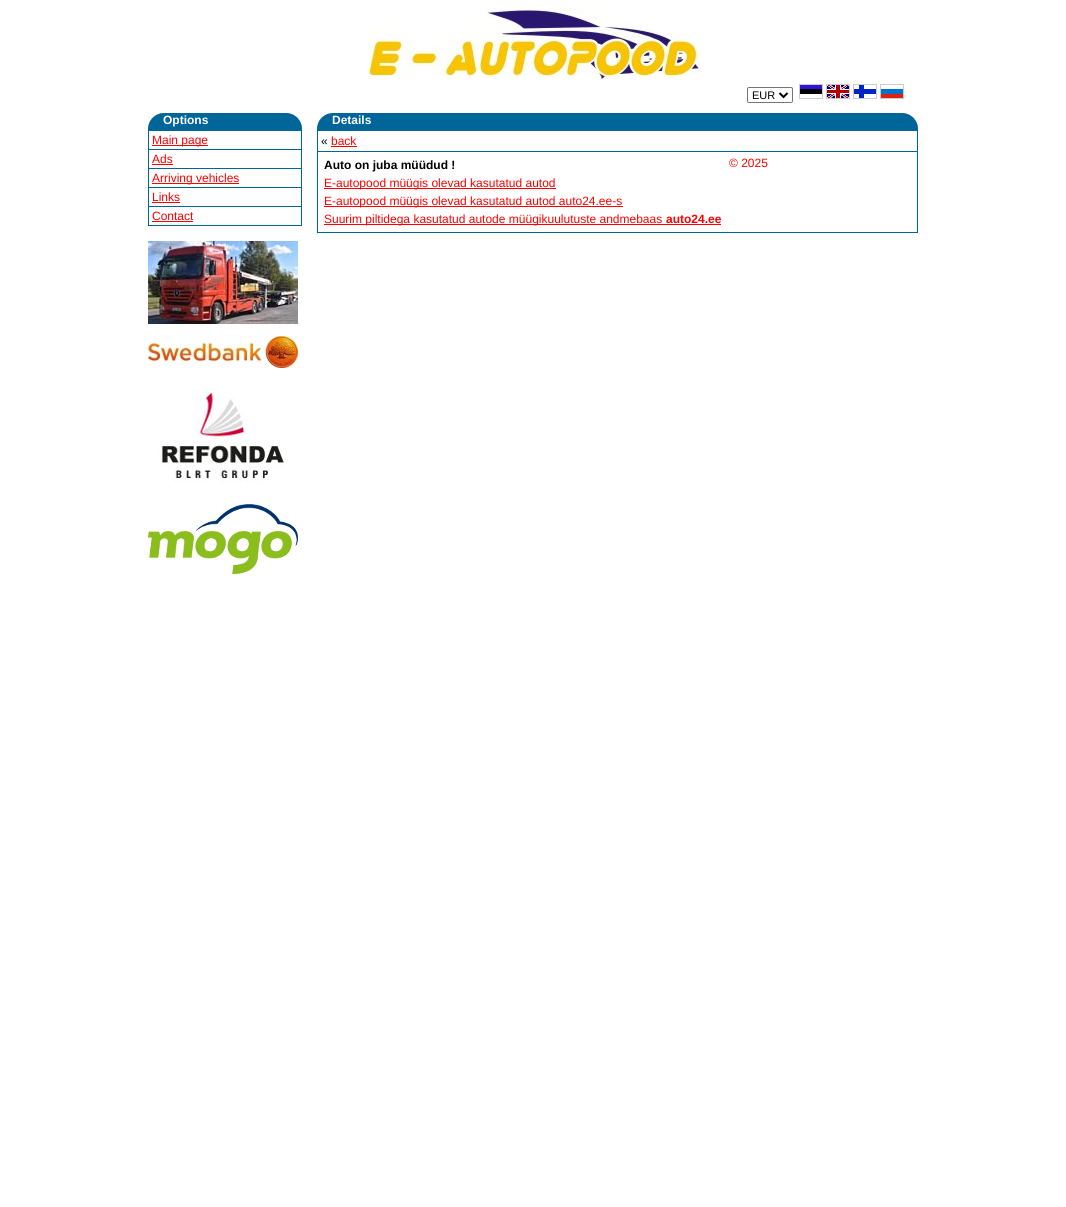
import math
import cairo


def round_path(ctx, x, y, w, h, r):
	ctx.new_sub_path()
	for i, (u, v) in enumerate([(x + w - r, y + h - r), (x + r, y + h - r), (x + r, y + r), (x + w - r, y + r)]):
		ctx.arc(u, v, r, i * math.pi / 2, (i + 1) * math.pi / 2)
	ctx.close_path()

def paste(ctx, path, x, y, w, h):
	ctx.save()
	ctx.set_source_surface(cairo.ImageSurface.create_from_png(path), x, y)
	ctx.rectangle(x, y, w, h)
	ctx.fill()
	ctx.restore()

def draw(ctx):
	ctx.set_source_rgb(1, 1, 1)
	ctx.paint()
	paste(ctx, 'media/1.png', 367, 10, 332, 69)
	round_path(ctx, 747.5, 87.5, 45, 15, 1.5)
	ctx.set_source_rgb(0.463, 0.463, 0.463)
	ctx.set_line_width(1)
	ctx.stroke()
	ctx.new_path()
	ctx.move_to(779.5, 93)
	ctx.line_to(783.5, 97)
	ctx.line_to(787.5, 93)
	ctx.set_source_rgb(0, 0, 0)
	ctx.set_line_width(2)
	ctx.stroke()
	ctx.select_font_face('Liberation Sans')
	ctx.set_font_size(11)
	ctx.move_to(752, 99)
	ctx.show_text('EUR')
	paste(ctx, 'media/2.png', 799, 84, 24, 15)
	paste(ctx, 'media/3.png', 826, 84, 24, 15)
	paste(ctx, 'media/4.png', 853, 84, 24, 15)
	paste(ctx, 'media/5.png', 880, 84, 24, 15)
	ctx.set_source_rgb(0, 0.396, 0.6)
	ctx.rectangle(148, 113, 154, 18)
	ctx.fill()
	paste(ctx, 'media/6.png', 148, 113, 15, 15)
	ctx.select_font_face('Liberation Sans', cairo.FONT_SLANT_NORMAL, cairo.FONT_WEIGHT_BOLD)
	ctx.set_font_size(12)
	ctx.set_source_rgb(1, 1, 1)
	ctx.move_to(163, 124)
	ctx.show_text('Options')
	paste(ctx, 'media/7.png', 287, 113, 15, 15)
	ctx.set_source_rgb(0, 0.396, 0.6)
	ctx.rectangle(301, 131, 1, 95)
	ctx.rectangle(148, 149, 154, 1)
	ctx.rectangle(148, 131, 1, 19)
	ctx.fill()
	ctx.set_source_rgb(1, 0, 0)
	ctx.rectangle(152, 145, 56, 1)
	ctx.fill()
	ctx.select_font_face('Liberation Sans')
	ctx.move_to(152, 144)
	ctx.show_text('Main page')
	ctx.set_source_rgb(0, 0.396, 0.6)
	ctx.rectangle(148, 168, 154, 1)
	ctx.fill()
	ctx.rectangle(148, 150, 1, 19)
	ctx.fill()
	ctx.set_source_rgb(1, 0, 0)
	ctx.move_to(152, 163)
	ctx.show_text('Ads')
	ctx.rectangle(152, 164, 21, 1)
	ctx.fill()
	ctx.set_source_rgb(0, 0.396, 0.6)
	ctx.rectangle(148, 187, 154, 1)
	ctx.rectangle(148, 169, 1, 19)
	ctx.fill()
	ctx.set_source_rgb(1, 0, 0)
	ctx.rectangle(152, 183, 87, 1)
	ctx.fill()
	ctx.move_to(152, 182)
	ctx.show_text('Arriving vehicles')
	ctx.set_source_rgb(0, 0.396, 0.6)
	ctx.rectangle(148, 206, 154, 1)
	ctx.fill()
	ctx.rectangle(148, 188, 1, 19)
	ctx.fill()
	ctx.set_source_rgb(1, 0, 0)
	ctx.move_to(152, 201)
	ctx.show_text('Links')
	ctx.rectangle(152, 202, 28, 1)
	ctx.fill()
	ctx.set_source_rgb(0, 0.396, 0.6)
	ctx.rectangle(148, 225, 154, 1)
	ctx.rectangle(148, 207, 1, 19)
	ctx.fill()
	ctx.set_source_rgb(1, 0, 0)
	ctx.move_to(152, 220)
	ctx.show_text('Contact')
	ctx.rectangle(152, 221, 41, 1)
	ctx.fill()
	paste(ctx, 'media/8.png', 148, 241, 150, 83)
	paste(ctx, 'media/9.png', 148, 336, 150, 32)
	paste(ctx, 'media/10.png', 156, 388, 128, 95)
	paste(ctx, 'media/11.png', 148, 504, 150, 70)
	ctx.set_source_rgb(0, 0.396, 0.6)
	ctx.rectangle(317, 113, 601, 18)
	ctx.fill()
	paste(ctx, 'media/6.png', 317, 113, 15, 15)
	ctx.select_font_face('Liberation Sans', cairo.FONT_SLANT_NORMAL, cairo.FONT_WEIGHT_BOLD)
	ctx.set_source_rgb(1, 1, 1)
	ctx.move_to(332, 124)
	ctx.show_text('Details')
	paste(ctx, 'media/7.png', 903, 113, 15, 15)
	ctx.set_source_rgb(0, 0.396, 0.6)
	ctx.rectangle(917, 131, 1, 102)
	ctx.rectangle(317, 232, 601, 1)
	ctx.rectangle(317, 131, 1, 102)
	ctx.rectangle(318, 151, 599, 1)
	ctx.fill()
	ctx.select_font_face('Liberation Sans')
	ctx.set_source_rgb(0, 0, 0)
	ctx.move_to(321, 145)
	ctx.show_text('«')
	ctx.set_source_rgb(1, 0, 0)
	ctx.move_to(331, 145)
	ctx.show_text('back')
	ctx.rectangle(331, 146, 26, 1)
	ctx.fill()
	ctx.select_font_face('Liberation Sans', cairo.FONT_SLANT_NORMAL, cairo.FONT_WEIGHT_BOLD)
	ctx.set_source_rgb(0, 0, 0)
	ctx.move_to(324, 169)
	ctx.show_text('Auto on juba müüdud !')
	ctx.set_source_rgb(1, 0, 0)
	ctx.rectangle(324, 188, 232, 1)
	ctx.fill()
	ctx.select_font_face('Liberation Sans')
	ctx.move_to(324, 187)
	ctx.show_text('E-autopood müügis olevad kasutatud autod')
	ctx.rectangle(324, 206, 299, 1)
	ctx.fill()
	ctx.move_to(324, 205)
	ctx.show_text('E-autopood müügis olevad kasutatud autod auto24.ee-s')
	ctx.rectangle(324, 224, 397, 1)
	ctx.fill()
	ctx.move_to(324, 223)
	ctx.show_text('Suurim piltidega kasutatud autode müügikuulutuste andmebaas')
	ctx.select_font_face('Liberation Sans', cairo.FONT_SLANT_NORMAL, cairo.FONT_WEIGHT_BOLD)
	ctx.move_to(666, 223)
	ctx.show_text('auto24.ee')
	ctx.select_font_face('Liberation Sans')
	ctx.move_to(729, 167)
	ctx.show_text('© 2025')


surface = cairo.ImageSurface(cairo.FORMAT_RGB24, 1066, 1207)
ctx = cairo.Context(surface)
options = cairo.FontOptions()
options.set_hint_metrics(cairo.HINT_METRICS_OFF)
options.set_hint_style(cairo.HINT_STYLE_NONE)
ctx.set_font_options(options)
ctx.set_miter_limit(4)
draw(ctx)
surface.write_to_png('image.png')
